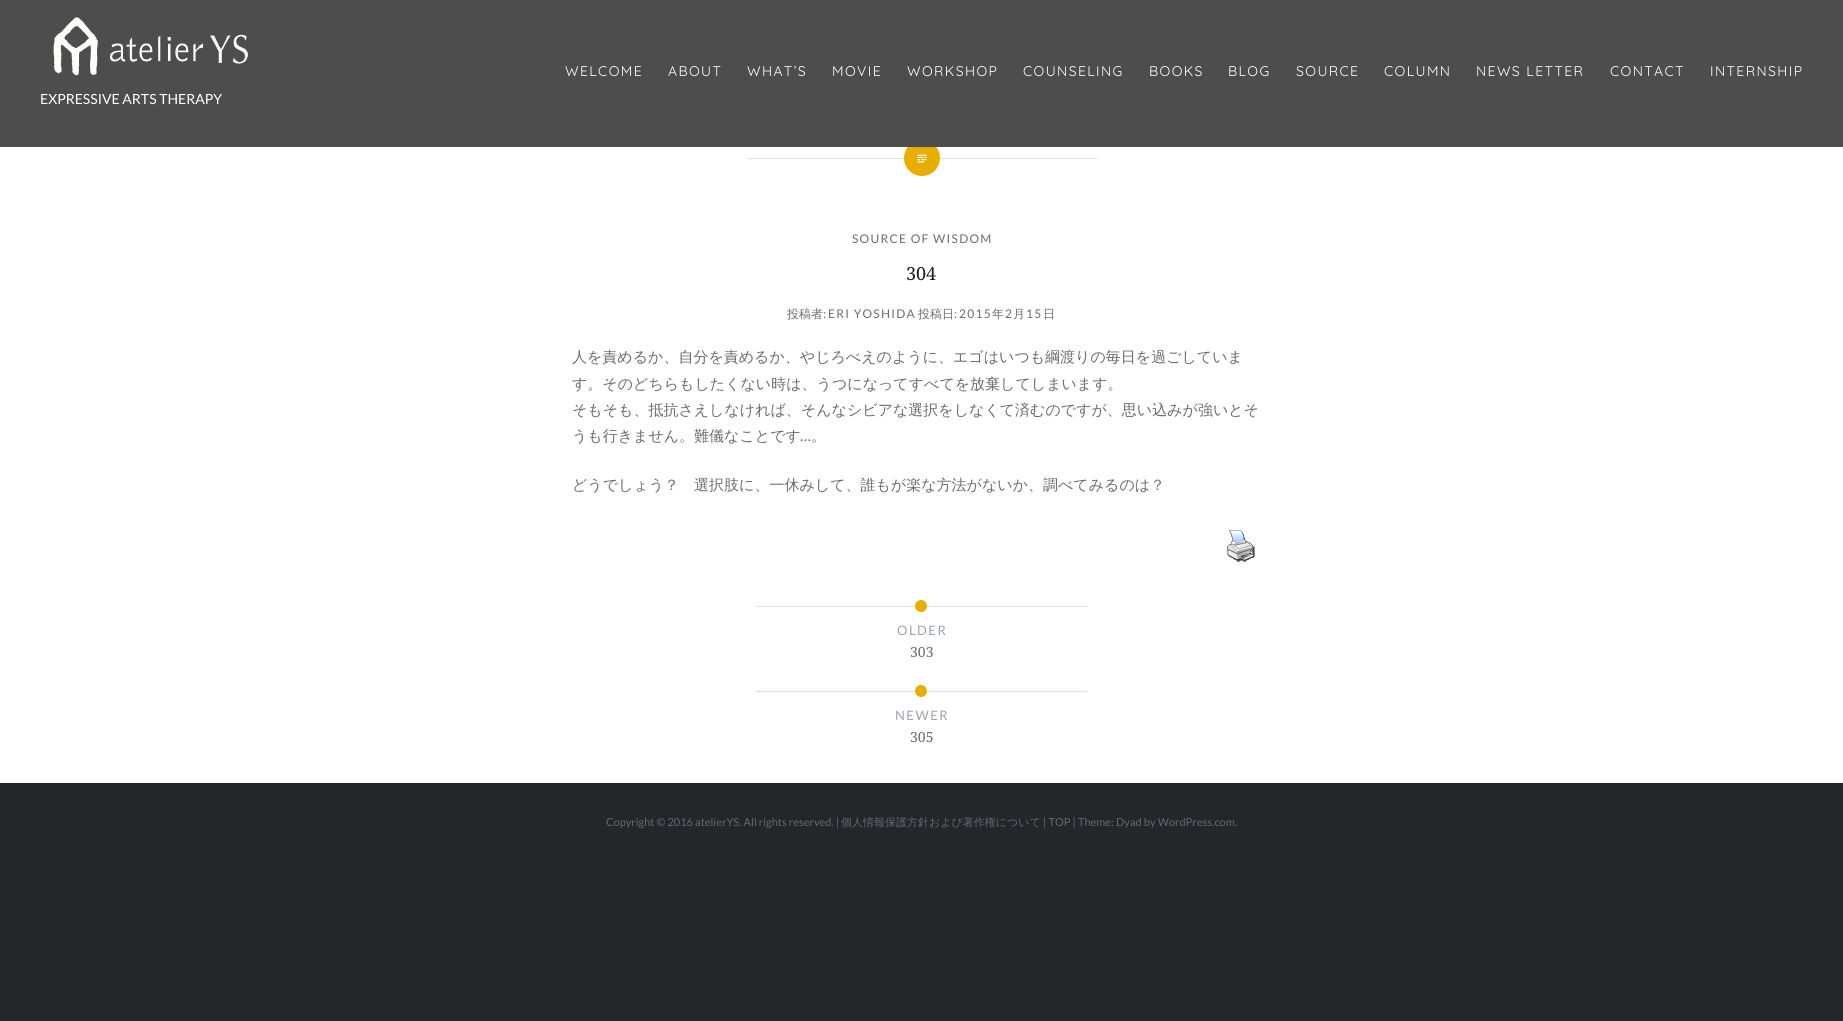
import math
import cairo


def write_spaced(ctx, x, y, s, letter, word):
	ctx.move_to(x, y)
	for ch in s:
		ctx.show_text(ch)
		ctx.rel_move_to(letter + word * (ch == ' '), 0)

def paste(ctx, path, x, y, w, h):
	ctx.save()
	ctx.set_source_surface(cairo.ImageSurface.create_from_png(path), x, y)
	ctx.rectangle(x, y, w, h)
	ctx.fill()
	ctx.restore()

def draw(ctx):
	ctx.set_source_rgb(0.141, 0.149, 0.161)
	ctx.paint()
	ctx.set_source_rgb(1, 1, 1)
	ctx.rectangle(0, 147, 1843, 636)
	ctx.fill()
	ctx.set_source_rgb(0.878, 0.878, 0.878)
	ctx.rectangle(747, 158, 350, 1)
	ctx.fill()
	ctx.set_source_rgb(0.906, 0.682, 0.004)
	ctx.arc(922, 158, 18, 0, 2 * math.pi)
	ctx.fill()
	ctx.set_source_rgb(0.302, 0.302, 0.302)
	ctx.rectangle(0, 0, 1843, 147)
	ctx.fill()
	ctx.select_font_face('Quicksand')
	ctx.set_font_size(14)
	ctx.set_source_rgb(1, 1, 1)
	for x, y, s in [
		(565, 76, 'WELCOME'),
		(668, 76, 'ABOUT'),
		(747, 76, 'WHAT’S'),
		(832, 76, 'MOVIE'),
		(907, 76, 'WORKSHOP'),
		(1023, 76, 'COUNSELING'),
		(1149, 76, 'BOOKS'),
		(1228, 76, 'BLOG'),
		(1296, 76, 'SOURCE'),
		(1384, 76, 'COLUMN'),
		(1476, 76, 'NEWS LETTER'),
		(1610, 76, 'CONTACT'),
		(1710, 76, 'INTERNSHIP'),
	]:
		write_spaced(ctx, x, y, s, 1.4, 0)
	paste(ctx, 'media/1.png', 53, 17, 195, 59)
	ctx.select_font_face('Lato')
	ctx.move_to(40, 104)
	ctx.show_text('EXPRESSIVE ARTS THERAPY')
	paste(ctx, 'media/2.png', 917, 154, 10, 9)
	ctx.set_font_size(12)
	ctx.set_source_rgb(0.416, 0.424, 0.431)
	write_spaced(ctx, 852, 243, 'SOURCE OF WISDOM', 1.25, 0)
	ctx.select_font_face('Noto Serif')
	ctx.set_font_size(18)
	ctx.set_source_rgb(0.102, 0.11, 0.118)
	ctx.move_to(906, 280)
	ctx.show_text('304')
	ctx.select_font_face('WenQuanYi Zen Hei Medium')
	ctx.set_font_size(12)
	ctx.set_source_rgb(0.416, 0.424, 0.431)
	ctx.move_to(787, 318)
	ctx.show_text('投稿者')
	ctx.select_font_face('Lato')
	ctx.move_to(823, 318)
	ctx.show_text(':')
	write_spaced(ctx, 828, 318, 'ERI YOSHIDA', 1.25, 0)
	ctx.select_font_face('WenQuanYi Zen Hei Medium')
	ctx.move_to(918, 318)
	ctx.show_text('投稿日')
	ctx.select_font_face('Lato')
	ctx.move_to(954, 318)
	ctx.show_text(':')
	write_spaced(ctx, 959, 318, '2015', 1.25, 0)
	ctx.select_font_face('WenQuanYi Zen Hei Medium')
	write_spaced(ctx, 992, 318, '年', 1.25, 0)
	ctx.select_font_face('Lato')
	write_spaced(ctx, 1005, 318, '2', 1.25, 0)
	ctx.select_font_face('WenQuanYi Zen Hei Medium')
	write_spaced(ctx, 1013, 318, '月', 1.25, 0)
	ctx.select_font_face('Lato')
	write_spaced(ctx, 1026, 318, '15', 1.25, 0)
	ctx.select_font_face('WenQuanYi Zen Hei Medium')
	write_spaced(ctx, 1043, 318, '日', 1.25, 0)
	ctx.set_font_size(15)
	for x, y, s in [
		(572, 362, '人を責めるか、自分を責めるか、やじろべえのように、エゴはいつも綱渡りの毎日を過ごしていま'),
		(572, 389, 'す。そのどちらもしたくない時は、うつになってすべてを放棄してしまいます。'),
		(572, 415, 'そもそも、抵抗さえしなければ、そんなシビアな選択をしなくて済むのですが、思い込みが強いとそ'),
		(572, 441, 'うも行きません。難儀なことです'),
	]:
		ctx.move_to(x, y)
		ctx.show_text(s)
	ctx.select_font_face('Lato')
	ctx.move_to(800, 441)
	ctx.show_text('…')
	ctx.select_font_face('WenQuanYi Zen Hei Medium')
	ctx.move_to(811, 441)
	ctx.show_text('。')
	ctx.move_to(572, 490)
	ctx.show_text('どうでしょう？　選択肢に、一休みして、誰もが楽な方法がないか、調べてみるのは？')
	paste(ctx, 'media/3.png', 1227, 530, 28, 32)
	ctx.set_source_rgb(0.878, 0.878, 0.878)
	ctx.rectangle(756, 606, 331, 1)
	ctx.fill()
	ctx.set_source_rgb(0.906, 0.682, 0.004)
	ctx.arc(921, 606, 6, 0, 2 * math.pi)
	ctx.fill()
	ctx.select_font_face('Lato')
	ctx.set_font_size(13)
	ctx.set_source_rgb(0.616, 0.647, 0.678)
	write_spaced(ctx, 897, 635, 'OLDER', 1.5, 0)
	ctx.select_font_face('Noto Serif')
	ctx.set_font_size(14)
	ctx.set_source_rgb(0.416, 0.424, 0.431)
	ctx.move_to(910, 657)
	ctx.show_text('303')
	ctx.set_source_rgb(0.878, 0.878, 0.878)
	ctx.rectangle(756, 691, 331, 1)
	ctx.fill()
	ctx.set_source_rgb(0.906, 0.682, 0.004)
	ctx.arc(921, 691, 6, 0, 2 * math.pi)
	ctx.fill()
	ctx.select_font_face('Lato')
	ctx.set_font_size(13)
	ctx.set_source_rgb(0.616, 0.647, 0.678)
	write_spaced(ctx, 895, 720, 'NEWER', 1.5, 0)
	ctx.select_font_face('Noto Serif')
	ctx.set_font_size(14)
	ctx.set_source_rgb(0.416, 0.424, 0.431)
	ctx.move_to(910, 742)
	ctx.show_text('305')
	ctx.select_font_face('Lato')
	ctx.set_font_size(11)
	ctx.set_source_rgb(0.38, 0.416, 0.455)
	ctx.move_to(606, 826)
	ctx.show_text('Copyright © 2016 atelierYS. All rights reserved. |')
	ctx.select_font_face('WenQuanYi Zen Hei Medium')
	ctx.move_to(841, 826)
	ctx.show_text('個人情報保護方針および著作権について')
	ctx.select_font_face('Lato')
	ctx.move_to(1043, 826)
	ctx.show_text('| TOP | Theme: Dyad by WordPress.com.')


surface = cairo.ImageSurface(cairo.FORMAT_RGB24, 1843, 1021)
ctx = cairo.Context(surface)
options = cairo.FontOptions()
options.set_hint_metrics(cairo.HINT_METRICS_OFF)
options.set_hint_style(cairo.HINT_STYLE_NONE)
ctx.set_font_options(options)
ctx.set_miter_limit(4)
draw(ctx)
surface.write_to_png('image.png')
